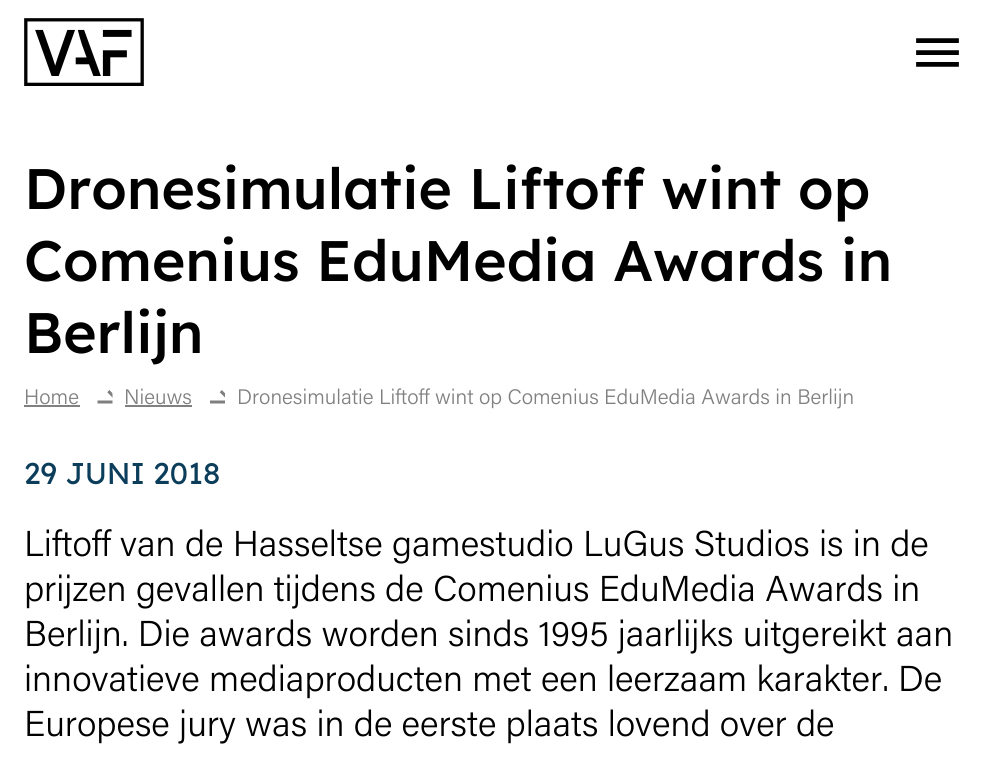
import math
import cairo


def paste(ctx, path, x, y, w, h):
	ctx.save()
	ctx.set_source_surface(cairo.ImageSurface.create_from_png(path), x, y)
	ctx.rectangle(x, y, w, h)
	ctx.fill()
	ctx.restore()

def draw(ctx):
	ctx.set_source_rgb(1, 1, 1)
	ctx.paint()
	paste(ctx, 'media/1.png', 24, 18, 120, 68)
	paste(ctx, 'media/2.png', 916, 38, 43, 29)
	ctx.select_font_face('Lexend Medium')
	ctx.set_font_size(57)
	ctx.set_source_rgb(0, 0, 0)
	for x, y, s in [
		(24, 209, 'Dronesimulatie Liftoff wint op'),
		(24, 281, 'Comenius EduMedia Awards in'),
		(24, 353, 'Berlijn'),
	]:
		ctx.move_to(x, y)
		ctx.show_text(s)
	ctx.select_font_face('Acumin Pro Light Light')
	ctx.set_font_size(21)
	ctx.set_source_rgb(0.502, 0.502, 0.502)
	ctx.move_to(24, 404)
	ctx.show_text('Home')
	ctx.rectangle(24, 405, 56, 2)
	ctx.fill()
	paste(ctx, 'media/3.png', 97, 390, 16, 14)
	ctx.move_to(124, 404)
	ctx.show_text('Nieuws')
	ctx.rectangle(125, 405, 67, 2)
	ctx.fill()
	paste(ctx, 'media/4.png', 210, 390, 15, 14)
	ctx.move_to(237, 404)
	ctx.show_text('Dronesimulatie Liftoff wint op Comenius EduMedia Awards in Berlijn')
	ctx.select_font_face('Lexend')
	ctx.set_font_size(30)
	ctx.set_source_rgb(0.047, 0.243, 0.357)
	ctx.move_to(24, 484)
	ctx.show_text('29 JUNI 2018')
	ctx.select_font_face('Acumin Pro Light Light')
	ctx.set_font_size(36)
	ctx.set_source_rgb(0, 0, 0)
	for x, y, s in [
		(24, 556, 'Liftoff van de Hasseltse gamestudio LuGus Studios is in de'),
		(24, 601, 'prijzen gevallen tijdens de Comenius EduMedia Awards in'),
		(24, 646, 'Berlijn. Die awards worden sinds 1995 jaarlijks uitgereikt aan'),
		(24, 691, 'innovatieve mediaproducten met een leerzaam karakter. De'),
		(24, 736, 'Europese jury was in de eerste plaats lovend over de'),
	]:
		ctx.move_to(x, y)
		ctx.show_text(s)


surface = cairo.ImageSurface(cairo.FORMAT_RGB24, 990, 768)
ctx = cairo.Context(surface)
options = cairo.FontOptions()
options.set_hint_metrics(cairo.HINT_METRICS_OFF)
options.set_hint_style(cairo.HINT_STYLE_NONE)
ctx.set_font_options(options)
ctx.set_miter_limit(4)
draw(ctx)
surface.write_to_png('image.png')
